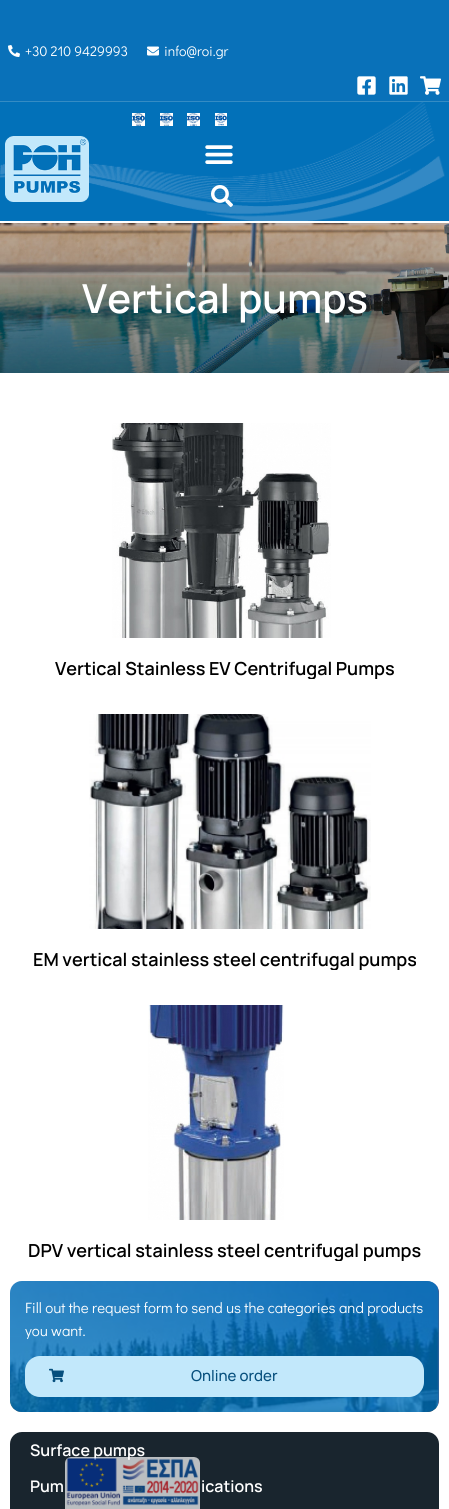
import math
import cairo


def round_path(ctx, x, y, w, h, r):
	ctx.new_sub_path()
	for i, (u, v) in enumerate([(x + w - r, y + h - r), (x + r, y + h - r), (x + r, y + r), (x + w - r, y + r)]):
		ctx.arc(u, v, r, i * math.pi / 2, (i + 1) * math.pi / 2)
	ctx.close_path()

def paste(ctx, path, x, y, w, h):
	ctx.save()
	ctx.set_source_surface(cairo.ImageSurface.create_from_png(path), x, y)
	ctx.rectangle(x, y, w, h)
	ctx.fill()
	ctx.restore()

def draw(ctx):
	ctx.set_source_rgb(1, 1, 1)
	ctx.paint()
	ctx.set_source_rgb(0.039, 0.443, 0.725)
	ctx.rectangle(0, 0, 449, 101)
	ctx.fill()
	ctx.set_source_rgb(0.204, 0.549, 0.769)
	ctx.rectangle(0, 101, 449, 1)
	ctx.fill()
	paste(ctx, 'media/1.png', 8, 45, 12, 12)
	ctx.select_font_face('Didact Gothic')
	ctx.set_font_size(14)
	ctx.set_source_rgb(1, 1, 1)
	ctx.move_to(25, 56)
	ctx.show_text('+30 210 9429993')
	paste(ctx, 'media/2.png', 147, 46, 12, 10)
	ctx.move_to(164, 56)
	ctx.show_text('info@roi.gr')
	paste(ctx, 'media/3.png', 357, 76, 19, 19)
	paste(ctx, 'media/4.png', 389, 76, 19, 19)
	paste(ctx, 'media/5.png', 420, 76, 21, 19)
	ctx.set_source_rgb(0.008, 0.443, 0.725)
	ctx.rectangle(0, 102, 449, 119)
	ctx.fill()
	paste(ctx, 'media/6.png', 0, 102, 445, 119)
	paste(ctx, 'media/7.png', 5, 136, 84, 66)
	paste(ctx, 'media/8.png', 132, 113, 13, 13)
	paste(ctx, 'media/9.png', 160, 113, 13, 13)
	paste(ctx, 'media/10.png', 187, 113, 13, 13)
	paste(ctx, 'media/11.png', 215, 113, 12, 13)
	paste(ctx, 'media/12.png', 205, 145, 28, 19)
	paste(ctx, 'media/13.png', 211, 185, 22, 22)
	paste(ctx, 'media/14.png', 0, 223, 449, 150)
	ctx.select_font_face('Manrope SemiBold')
	ctx.set_font_size(40)
	ctx.set_source_rgb(1, 1, 1)
	ctx.move_to(82, 313)
	ctx.show_text('Vertical pumps')
	paste(ctx, 'media/15.png', 112, 423, 219, 215)
	ctx.save()
	ctx.rectangle(10, 423, 429, 256)
	ctx.clip()
	ctx.set_font_size(18)
	ctx.set_source_rgb(0, 0, 0)
	ctx.move_to(55, 675)
	ctx.show_text('Vertical Stainless EV Centrifugal Pumps')
	ctx.restore()
	paste(ctx, 'media/16.png', 89, 714, 282, 215)
	ctx.save()
	ctx.rectangle(10, 714, 429, 256)
	ctx.clip()
	ctx.set_font_size(18)
	ctx.set_source_rgb(0, 0, 0)
	ctx.move_to(33, 966)
	ctx.show_text('EM vertical stainless steel centrifugal pumps')
	ctx.restore()
	paste(ctx, 'media/17.png', 148, 1005, 136, 215)
	ctx.save()
	ctx.rectangle(10, 1005, 429, 256)
	ctx.clip()
	ctx.set_font_size(18)
	ctx.set_source_rgb(0, 0, 0)
	ctx.move_to(28, 1257)
	ctx.show_text('DPV vertical stainless steel centrifugal pumps')
	ctx.restore()
	paste(ctx, 'media/18.png', 10, 1281, 429, 131)
	ctx.set_source_rgba(0.008, 0.443, 0.725, 0.8)
	round_path(ctx, 10, 1281, 429, 131, 12)
	ctx.fill()
	ctx.select_font_face('Didact Gothic')
	ctx.set_font_size(15)
	ctx.set_source_rgb(1, 1, 1)
	ctx.move_to(25, 1313)
	ctx.show_text('Fill out the request form to send us the categories and products')
	ctx.move_to(25, 1336)
	ctx.show_text('you want.')
	ctx.set_source_rgb(0.761, 0.91, 0.984)
	round_path(ctx, 25, 1356, 399, 41, 15)
	ctx.fill()
	paste(ctx, 'media/19.png', 49, 1368, 15, 15)
	ctx.select_font_face('Manrope Medium')
	ctx.set_source_rgb(0.024, 0.31, 0.49)
	ctx.move_to(191, 1381)
	ctx.show_text('Online order')
	ctx.set_source_rgb(0.098, 0.145, 0.18)
	round_path(ctx, 10, 1432, 429, 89, 12)
	ctx.fill()
	ctx.select_font_face('Manrope SemiBold')
	ctx.set_font_size(16)
	ctx.set_source_rgb(1, 1, 1)
	for x, y, s in [
		(30, 1456, 'Surface pumps'),
		(30, 1492, 'Pum'),
		(201, 1492, 'ications'),
	]:
		ctx.move_to(x, y)
		ctx.show_text(s)
	ctx.set_source_rgb(0.729, 0.745, 0.753)
	ctx.rectangle(65, 1507, 135, 2)
	ctx.fill()
	paste(ctx, 'media/20.png', 65, 1457, 135, 50)


surface = cairo.ImageSurface(cairo.FORMAT_RGB24, 449, 1509)
ctx = cairo.Context(surface)
options = cairo.FontOptions()
options.set_hint_metrics(cairo.HINT_METRICS_OFF)
options.set_hint_style(cairo.HINT_STYLE_NONE)
ctx.set_font_options(options)
ctx.set_miter_limit(4)
draw(ctx)
surface.write_to_png('image.png')
